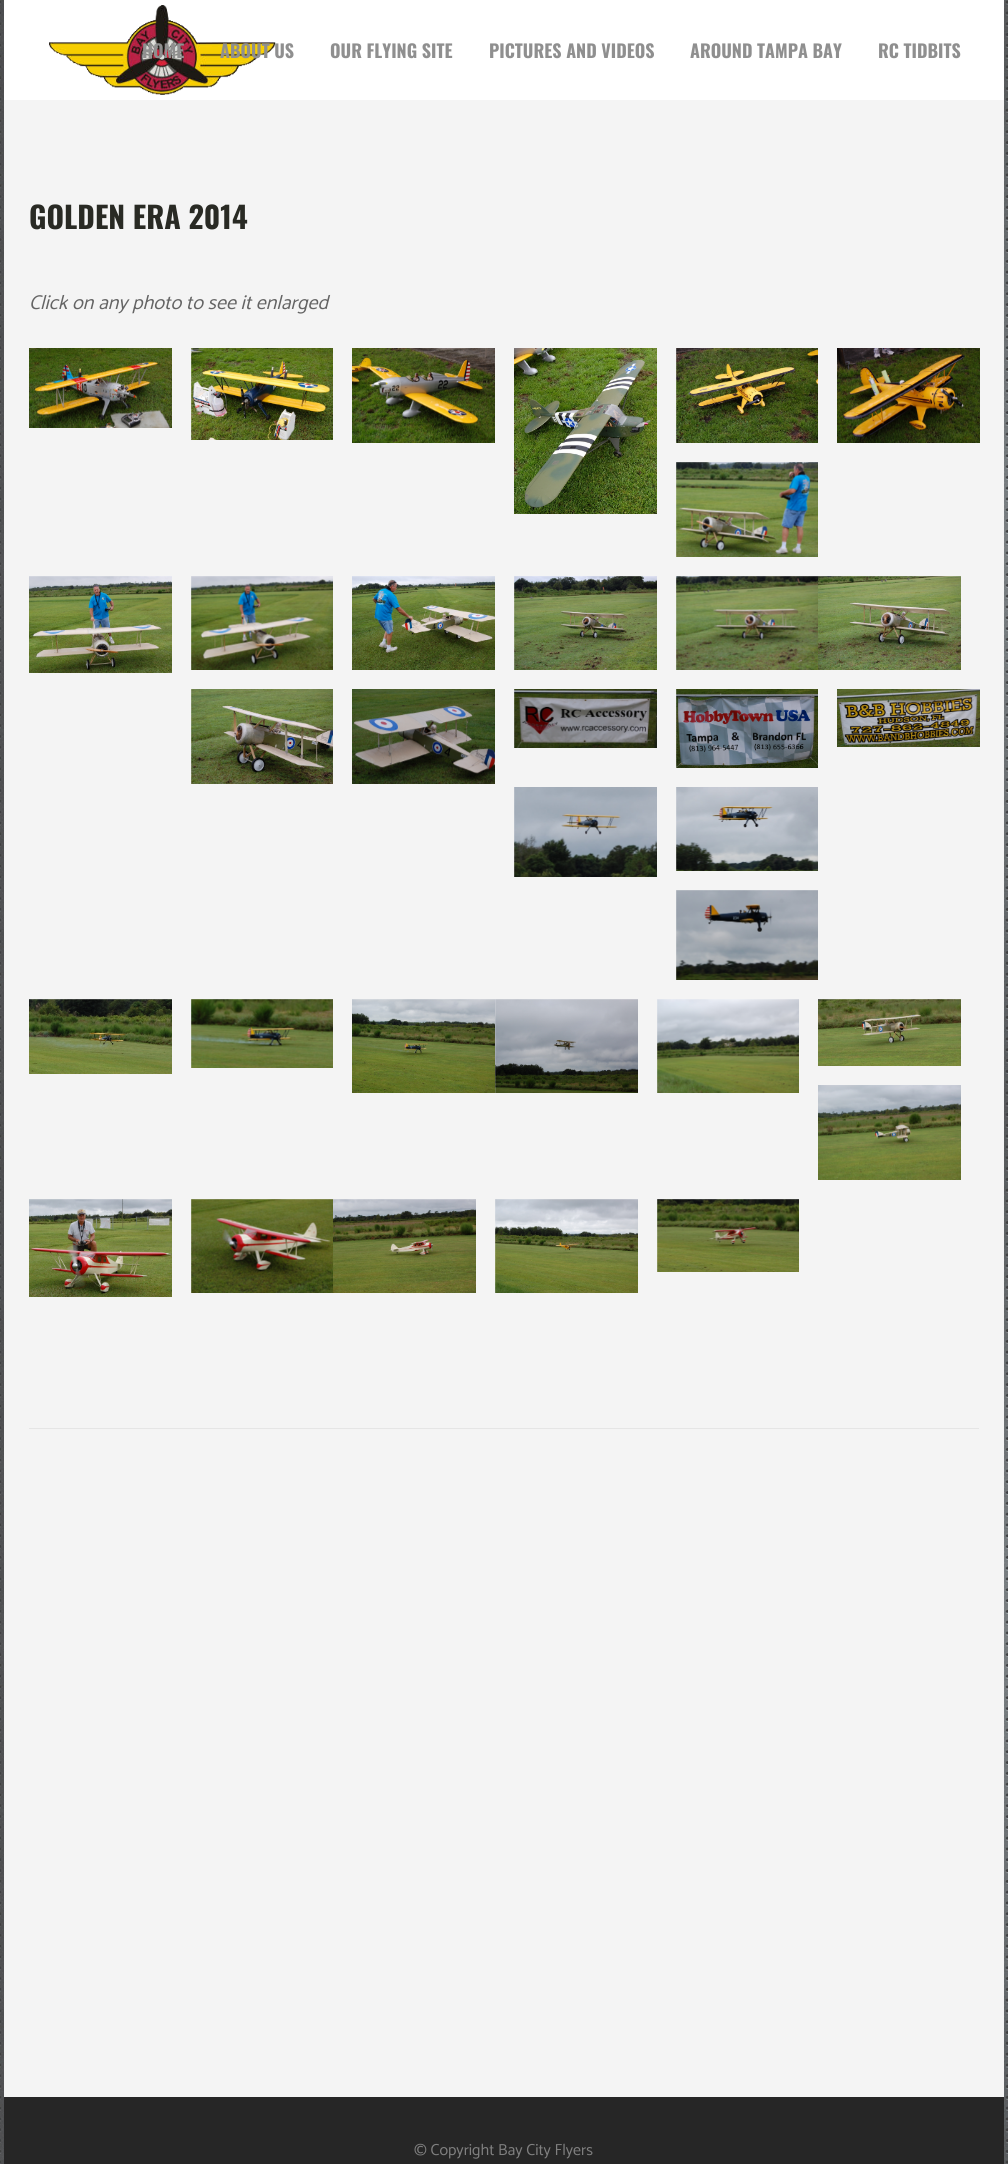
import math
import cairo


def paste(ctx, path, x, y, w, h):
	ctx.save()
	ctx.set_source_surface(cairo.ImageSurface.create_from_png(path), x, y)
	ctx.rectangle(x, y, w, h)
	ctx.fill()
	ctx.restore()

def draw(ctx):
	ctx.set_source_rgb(1, 1, 1)
	ctx.paint()
	paste(ctx, 'media/1.png', 0, 0, 1008, 2164)
	ctx.set_source_rgb(1, 1, 1)
	ctx.rectangle(4, 0, 1000, 100)
	ctx.fill()
	paste(ctx, 'media/2.png', 49, 5, 227, 90)
	ctx.select_font_face('Oswald', cairo.FONT_SLANT_NORMAL, cairo.FONT_WEIGHT_BOLD)
	ctx.set_font_size(18)
	ctx.set_source_rgb(0.561, 0.561, 0.561)
	for x, y, s in [
		(142, 58, 'HOME'),
		(220, 58, 'ABOUT US'),
		(330, 58, 'OUR FLYING SITE'),
		(489, 58, 'PICTURES AND VIDEOS'),
		(690, 58, 'AROUND TAMPA BAY'),
		(878, 58, 'RC TIDBITS'),
	]:
		ctx.move_to(x, y)
		ctx.show_text(s)
	ctx.set_source_rgb(0.957, 0.957, 0.957)
	ctx.rectangle(4, 100, 1000, 1997)
	ctx.fill()
	ctx.set_font_size(30)
	ctx.set_source_rgb(0.161, 0.165, 0.141)
	ctx.move_to(29, 229)
	ctx.show_text('GOLDEN ERA 2014')
	ctx.select_font_face('Catamaran', cairo.FONT_SLANT_ITALIC)
	ctx.set_font_size(20)
	ctx.set_source_rgb(0.392, 0.392, 0.392)
	ctx.move_to(29, 309)
	ctx.show_text('Click on any photo to see it enlarged')
	paste(ctx, 'media/3.png', 29, 348, 143, 80)
	paste(ctx, 'media/4.png', 191, 348, 142, 92)
	paste(ctx, 'media/5.png', 352, 348, 143, 95)
	paste(ctx, 'media/6.png', 514, 348, 143, 166)
	paste(ctx, 'media/7.png', 676, 348, 142, 95)
	paste(ctx, 'media/8.png', 837, 348, 143, 95)
	paste(ctx, 'media/9.png', 676, 462, 142, 95)
	paste(ctx, 'media/10.png', 29, 576, 143, 97)
	paste(ctx, 'media/11.png', 191, 576, 142, 94)
	paste(ctx, 'media/12.png', 352, 576, 143, 94)
	paste(ctx, 'media/13.png', 514, 576, 143, 94)
	paste(ctx, 'media/14.png', 676, 576, 142, 94)
	paste(ctx, 'media/15.png', 818, 576, 143, 94)
	paste(ctx, 'media/16.png', 191, 689, 142, 95)
	paste(ctx, 'media/17.png', 352, 689, 143, 95)
	paste(ctx, 'media/18.png', 514, 689, 143, 59)
	paste(ctx, 'media/19.png', 676, 689, 142, 79)
	paste(ctx, 'media/20.png', 837, 689, 143, 58)
	paste(ctx, 'media/21.png', 514, 787, 143, 90)
	paste(ctx, 'media/22.png', 676, 787, 142, 84)
	paste(ctx, 'media/23.png', 676, 890, 142, 90)
	paste(ctx, 'media/24.png', 29, 999, 143, 75)
	paste(ctx, 'media/25.png', 191, 999, 142, 69)
	paste(ctx, 'media/26.png', 352, 999, 143, 94)
	paste(ctx, 'media/27.png', 495, 999, 143, 94)
	paste(ctx, 'media/28.png', 657, 999, 142, 94)
	paste(ctx, 'media/29.png', 818, 999, 143, 67)
	paste(ctx, 'media/30.png', 818, 1085, 143, 95)
	paste(ctx, 'media/31.png', 29, 1199, 143, 98)
	paste(ctx, 'media/32.png', 191, 1199, 142, 94)
	paste(ctx, 'media/33.png', 333, 1199, 143, 94)
	paste(ctx, 'media/34.png', 495, 1199, 143, 94)
	paste(ctx, 'media/35.png', 657, 1199, 142, 73)
	ctx.set_source_rgb(0.898, 0.898, 0.898)
	ctx.rectangle(29, 1428, 950, 1)
	ctx.fill()
	ctx.set_source_rgb(0.149, 0.149, 0.149)
	ctx.rectangle(4, 2097, 1000, 67)
	ctx.fill()
	ctx.select_font_face('Catamaran')
	ctx.set_font_size(16)
	ctx.set_source_rgb(0.502, 0.502, 0.502)
	ctx.move_to(414, 2155)
	ctx.show_text('© Copyright Bay City Flyers')


surface = cairo.ImageSurface(cairo.FORMAT_RGB24, 1008, 2164)
ctx = cairo.Context(surface)
options = cairo.FontOptions()
options.set_hint_metrics(cairo.HINT_METRICS_OFF)
options.set_hint_style(cairo.HINT_STYLE_NONE)
ctx.set_font_options(options)
ctx.set_miter_limit(4)
draw(ctx)
surface.write_to_png('image.png')
